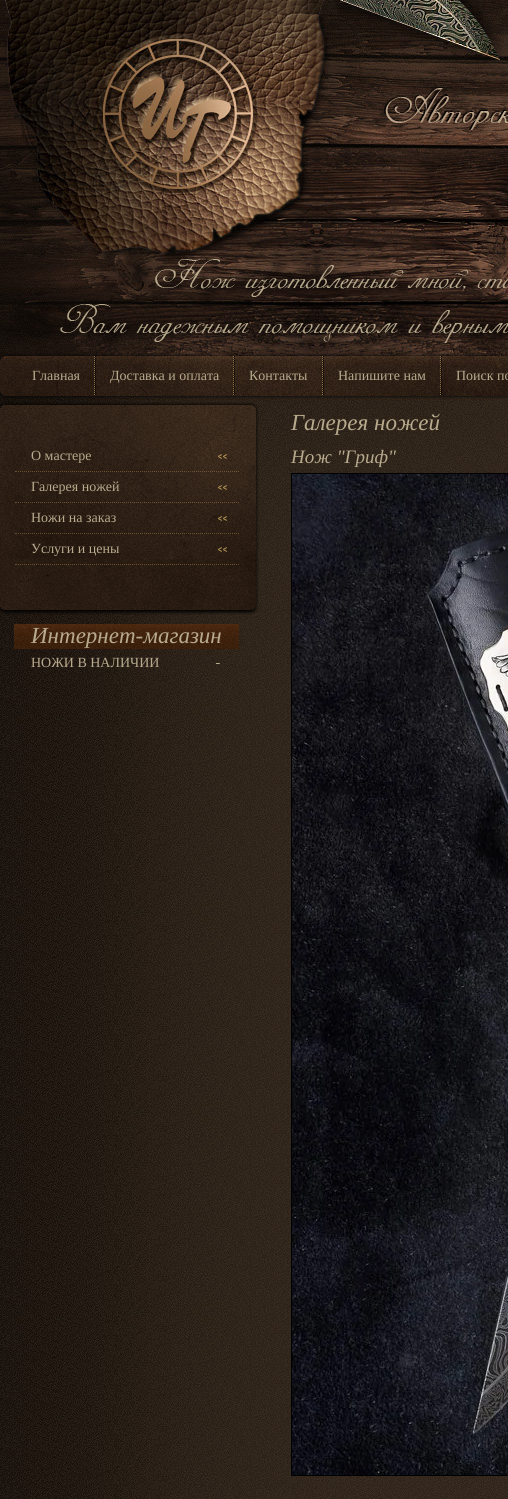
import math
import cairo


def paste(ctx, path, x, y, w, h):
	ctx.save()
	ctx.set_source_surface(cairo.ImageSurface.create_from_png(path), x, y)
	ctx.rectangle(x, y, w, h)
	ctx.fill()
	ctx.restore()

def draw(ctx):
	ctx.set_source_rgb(1, 1, 1)
	ctx.paint()
	paste(ctx, 'media/1.png', 0, 613, 508, 886)
	paste(ctx, 'media/2.png', 0, 0, 508, 400)
	paste(ctx, 'media/3.png', 384, 87, 124, 43)
	paste(ctx, 'media/4.png', 486, 168, 22, 63)
	paste(ctx, 'media/5.png', 60, 259, 448, 84)
	ctx.select_font_face('Liberation Serif')
	ctx.set_font_size(14)
	ctx.set_source_rgb(0.722, 0.667, 0.553)
	ctx.move_to(32, 380)
	ctx.show_text('Главная')
	paste(ctx, 'media/6.png', 94, 356, 2, 39)
	ctx.move_to(110, 380)
	ctx.show_text('Доставка и оплата')
	paste(ctx, 'media/7.png', 233, 356, 2, 39)
	ctx.move_to(249, 380)
	ctx.show_text('Контакты')
	paste(ctx, 'media/8.png', 322, 356, 2, 39)
	ctx.move_to(338, 380)
	ctx.show_text('Напишите нам')
	paste(ctx, 'media/9.png', 440, 356, 2, 39)
	ctx.move_to(456, 380)
	ctx.show_text('Поиск по')
	paste(ctx, 'media/10.png', 0, 400, 508, 213)
	ctx.select_font_face('Liberation Serif', cairo.FONT_SLANT_ITALIC)
	ctx.set_font_size(23)
	ctx.move_to(291, 430)
	ctx.show_text('Галерея ножей')
	ctx.set_font_size(19)
	ctx.move_to(291, 463)
	ctx.show_text('Нож "Гриф"')
	ctx.rectangle(291.5, 473.5, 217, 1002)
	ctx.set_source_rgb(0, 0, 0)
	ctx.set_line_width(1)
	ctx.stroke()
	paste(ctx, 'media/11.png', 292, 474, 216, 1001)
	paste(ctx, 'media/12.png', 0, 402, 259, 147)
	paste(ctx, 'media/13.png', 0, 549, 259, 2)
	paste(ctx, 'media/14.png', 15, 471, 224, 1)
	paste(ctx, 'media/15.png', 218, 454, 9, 5)
	ctx.select_font_face('Liberation Serif')
	ctx.set_font_size(14)
	ctx.set_source_rgb(0.722, 0.667, 0.553)
	ctx.move_to(31, 460)
	ctx.show_text('О мастере')
	paste(ctx, 'media/16.png', 15, 502, 224, 1)
	paste(ctx, 'media/17.png', 218, 485, 9, 5)
	ctx.move_to(31, 491)
	ctx.show_text('Галерея ножей')
	paste(ctx, 'media/18.png', 15, 533, 224, 1)
	paste(ctx, 'media/19.png', 218, 516, 9, 5)
	ctx.move_to(31, 522)
	ctx.show_text('Ножи на заказ')
	paste(ctx, 'media/22.png', 0, 551, 259, 64)
	paste(ctx, 'media/20.png', 15, 564, 224, 1)
	paste(ctx, 'media/21.png', 218, 547, 9, 5)
	ctx.move_to(31, 553)
	ctx.show_text('Услуги и цены')
	paste(ctx, 'media/23.png', 14, 624, 225, 25)
	ctx.select_font_face('Liberation Serif', cairo.FONT_SLANT_ITALIC)
	ctx.set_font_size(23)
	ctx.move_to(31, 643)
	ctx.show_text('Интернет-магазин')
	paste(ctx, 'media/24.png', 216, 663, 4, 1)
	ctx.select_font_face('Liberation Serif')
	ctx.set_font_size(14)
	ctx.move_to(31, 667)
	ctx.show_text('НОЖИ В НАЛИЧИИ')


surface = cairo.ImageSurface(cairo.FORMAT_RGB24, 508, 1499)
ctx = cairo.Context(surface)
options = cairo.FontOptions()
options.set_hint_metrics(cairo.HINT_METRICS_OFF)
options.set_hint_style(cairo.HINT_STYLE_NONE)
ctx.set_font_options(options)
ctx.set_miter_limit(4)
draw(ctx)
surface.write_to_png('image.png')
